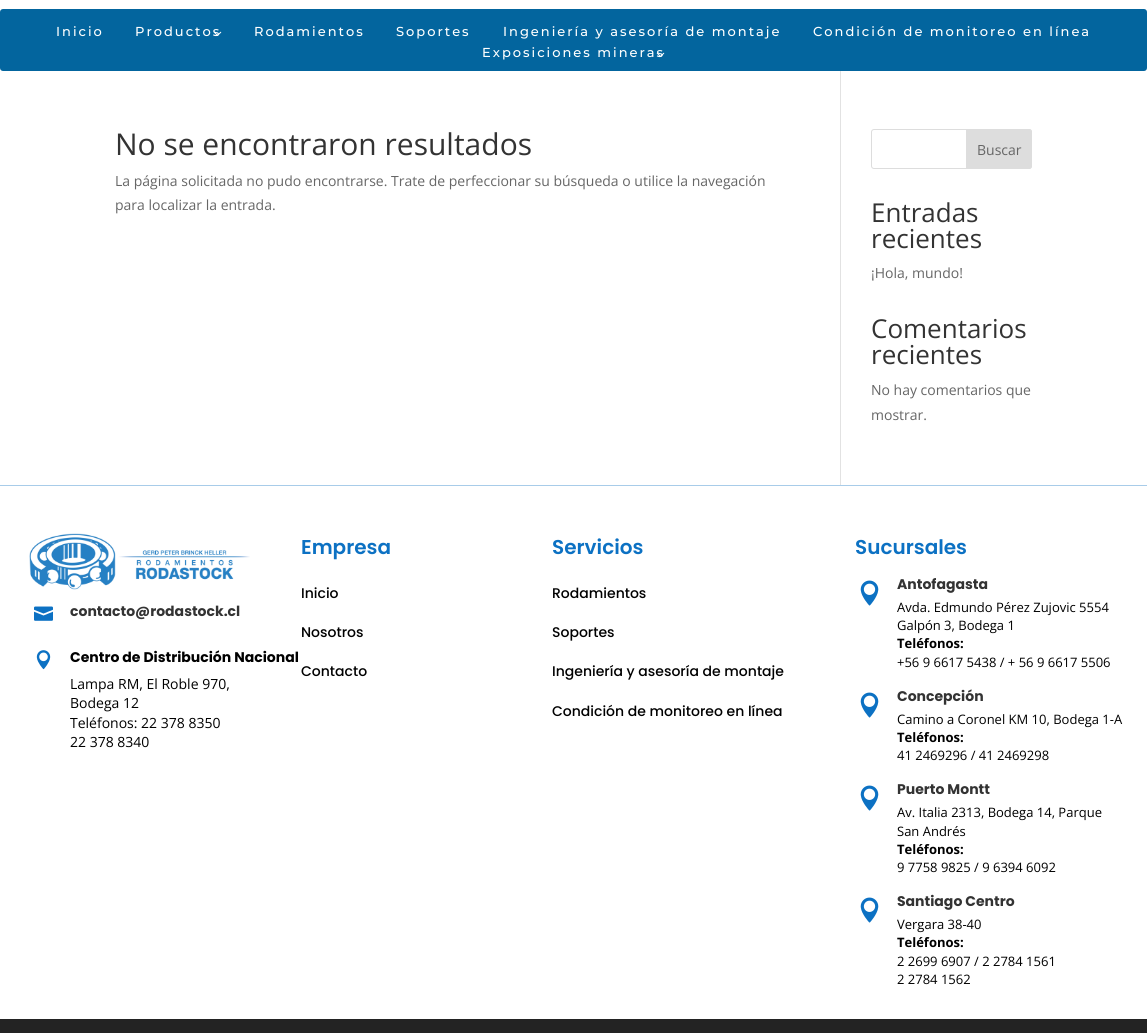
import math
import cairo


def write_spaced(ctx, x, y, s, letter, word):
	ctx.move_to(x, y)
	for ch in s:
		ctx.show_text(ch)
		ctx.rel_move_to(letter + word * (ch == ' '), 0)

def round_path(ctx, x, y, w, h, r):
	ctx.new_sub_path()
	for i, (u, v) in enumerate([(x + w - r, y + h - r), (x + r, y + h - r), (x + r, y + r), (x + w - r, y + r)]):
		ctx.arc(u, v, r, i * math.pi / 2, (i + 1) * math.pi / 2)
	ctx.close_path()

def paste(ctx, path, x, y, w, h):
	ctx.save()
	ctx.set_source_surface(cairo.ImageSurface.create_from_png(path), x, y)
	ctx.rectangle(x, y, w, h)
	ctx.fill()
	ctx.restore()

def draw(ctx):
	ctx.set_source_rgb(1, 1, 1)
	ctx.paint()
	ctx.set_source_rgb(0.012, 0.396, 0.62)
	round_path(ctx, 0, 9, 1147, 62, 3)
	ctx.fill()
	ctx.select_font_face('Montserrat Medium')
	ctx.set_font_size(13)
	ctx.set_source_rgb(1, 1, 1)
	write_spaced(ctx, 56, 36, 'Inicio', 2, 0)
	write_spaced(ctx, 135, 36, 'Productos', 2, 0)
	paste(ctx, 'media/1.png', 213, 31, 9, 5)
	for x, y, s in [
		(254, 36, 'Rodamientos'),
		(396, 36, 'Soportes'),
		(503, 36, 'Ingeniería y asesoría de montaje'),
		(813, 36, 'Condición de monitoreo en línea'),
		(482, 57, 'Exposiciones mineras'),
	]:
		write_spaced(ctx, x, y, s, 2, 0)
	paste(ctx, 'media/2.png', 656, 52, 9, 5)
	ctx.set_source_rgb(0.886, 0.886, 0.886)
	ctx.rectangle(840, 71, 1, 414)
	ctx.fill()
	ctx.select_font_face('Open Sans')
	ctx.set_font_size(30)
	ctx.set_source_rgb(0.2, 0.2, 0.2)
	ctx.move_to(115, 155)
	ctx.show_text('No se encontraron resultados')
	ctx.set_font_size(14)
	ctx.set_source_rgb(0.4, 0.4, 0.4)
	ctx.move_to(115, 186)
	ctx.show_text('La página solicitada no pudo encontrarse. Trate de perfeccionar su búsqueda o utilice la navegación')
	ctx.move_to(115, 210)
	ctx.show_text('para localizar la entrada.')
	round_path(ctx, 871.5, 129.5, 160, 39, 2.5)
	ctx.set_source_rgb(0.867, 0.867, 0.867)
	ctx.set_line_width(1)
	ctx.stroke()
	ctx.new_path()
	ctx.move_to(966.5, 129.5)
	ctx.line_to(1029, 129.5)
	ctx.curve_to(1030.5, 129.5, 1031.5, 130.5, 1031.5, 132)
	ctx.line_to(1031.5, 166)
	ctx.curve_to(1031.5, 167.5, 1030.5, 168.5, 1029, 168.5)
	ctx.line_to(966.5, 168.5)
	ctx.close_path()
	ctx.fill_preserve()
	ctx.stroke()
	ctx.set_source_rgb(0.4, 0.4, 0.4)
	ctx.move_to(977, 155)
	ctx.show_text('Buscar')
	ctx.set_font_size(26)
	ctx.set_source_rgb(0.2, 0.2, 0.2)
	ctx.move_to(871, 222)
	ctx.show_text('Entradas')
	ctx.move_to(871, 248)
	ctx.show_text('recientes')
	ctx.set_font_size(14)
	ctx.set_source_rgb(0.4, 0.4, 0.4)
	ctx.move_to(871, 278)
	ctx.show_text('¡Hola, mundo!')
	ctx.set_font_size(26)
	ctx.set_source_rgb(0.2, 0.2, 0.2)
	ctx.move_to(871, 338)
	ctx.show_text('Comentarios')
	ctx.move_to(871, 364)
	ctx.show_text('recientes')
	ctx.set_font_size(14)
	ctx.set_source_rgb(0.4, 0.4, 0.4)
	ctx.move_to(871, 395)
	ctx.show_text('No hay comentarios que')
	ctx.move_to(871, 420)
	ctx.show_text('mostrar.')
	ctx.set_source_rgb(0.659, 0.8, 0.914)
	ctx.rectangle(0, 485, 1147, 1)
	ctx.fill()
	paste(ctx, 'media/3.png', 29, 533, 221, 57)
	paste(ctx, 'media/4.png', 34, 606, 19, 15)
	ctx.select_font_face('Poppins', cairo.FONT_SLANT_NORMAL, cairo.FONT_WEIGHT_BOLD)
	ctx.set_source_rgb(0.2, 0.2, 0.2)
	ctx.move_to(70, 616)
	ctx.show_text('contacto@rodastock.cl')
	paste(ctx, 'media/5.png', 36, 650, 15, 20)
	ctx.set_source_rgb(0, 0, 0)
	ctx.move_to(70, 662)
	ctx.show_text('Centro de Distribución Nacional')
	ctx.select_font_face('Open Sans')
	for x, y, s in [
		(70, 689, 'Lampa RM, El Roble 970,'),
		(70, 708, 'Bodega 12'),
		(70, 728, 'Teléfonos: 22 378 8350'),
		(70, 747, '22 378 8340'),
	]:
		ctx.move_to(x, y)
		ctx.show_text(s)
	ctx.select_font_face('Poppins SemiBold')
	ctx.set_font_size(20)
	ctx.set_source_rgb(0.047, 0.443, 0.765)
	ctx.move_to(301, 554)
	ctx.show_text('Empresa')
	ctx.select_font_face('Poppins Medium')
	ctx.set_font_size(14)
	ctx.set_source_rgb(0, 0, 0)
	for x, y, s in [
		(301, 598, 'Inicio'),
		(301, 637, 'Nosotros'),
		(301, 676, 'Contacto'),
	]:
		ctx.move_to(x, y)
		ctx.show_text(s)
	ctx.select_font_face('Poppins SemiBold')
	ctx.set_font_size(20)
	ctx.set_source_rgb(0.047, 0.443, 0.765)
	ctx.move_to(552, 554)
	ctx.show_text('Servicios')
	ctx.select_font_face('Poppins Medium')
	ctx.set_font_size(14)
	ctx.set_source_rgb(0, 0, 0)
	for x, y, s in [
		(552, 598, 'Rodamientos'),
		(552, 637, 'Soportes'),
		(552, 676, 'Ingeniería y asesoría de montaje'),
		(552, 716, 'Condición de monitoreo en línea'),
	]:
		ctx.move_to(x, y)
		ctx.show_text(s)
	ctx.select_font_face('Poppins SemiBold')
	ctx.set_font_size(20)
	ctx.set_source_rgb(0.047, 0.443, 0.765)
	ctx.move_to(855, 554)
	ctx.show_text('Sucursales')
	paste(ctx, 'media/6.png', 860, 580, 19, 26)
	ctx.select_font_face('Poppins', cairo.FONT_SLANT_NORMAL, cairo.FONT_WEIGHT_BOLD)
	ctx.set_font_size(14)
	ctx.set_source_rgb(0.2, 0.2, 0.2)
	ctx.move_to(897, 589)
	ctx.show_text('Antofagasta')
	ctx.select_font_face('Open Sans')
	ctx.set_font_size(13)
	ctx.set_source_rgb(0, 0, 0)
	ctx.move_to(897, 612)
	ctx.show_text('Avda. Edmundo Pérez Zujovic 5554')
	ctx.move_to(897, 630)
	ctx.show_text('Galpón 3, Bodega 1')
	ctx.select_font_face('Open Sans', cairo.FONT_SLANT_NORMAL, cairo.FONT_WEIGHT_BOLD)
	ctx.move_to(897, 648)
	ctx.show_text('Teléfonos:')
	ctx.select_font_face('Open Sans')
	ctx.move_to(897, 667)
	ctx.show_text('+56 9 6617 5438 / + 56 9 6617 5506')
	paste(ctx, 'media/6.png', 860, 692, 19, 26)
	ctx.select_font_face('Poppins', cairo.FONT_SLANT_NORMAL, cairo.FONT_WEIGHT_BOLD)
	ctx.set_font_size(14)
	ctx.set_source_rgb(0.2, 0.2, 0.2)
	ctx.move_to(897, 701)
	ctx.show_text('Concepción')
	ctx.select_font_face('Open Sans')
	ctx.set_font_size(13)
	ctx.set_source_rgb(0, 0, 0)
	ctx.move_to(897, 724)
	ctx.show_text('Camino a Coronel KM 10, Bodega 1-A')
	ctx.select_font_face('Open Sans', cairo.FONT_SLANT_NORMAL, cairo.FONT_WEIGHT_BOLD)
	ctx.move_to(897, 742)
	ctx.show_text('Teléfonos:')
	ctx.select_font_face('Open Sans')
	ctx.move_to(897, 760)
	ctx.show_text('41 2469296 / 41 2469298')
	paste(ctx, 'media/6.png', 860, 785, 19, 26)
	ctx.select_font_face('Poppins', cairo.FONT_SLANT_NORMAL, cairo.FONT_WEIGHT_BOLD)
	ctx.set_font_size(14)
	ctx.set_source_rgb(0.2, 0.2, 0.2)
	ctx.move_to(897, 794)
	ctx.show_text('Puerto Montt')
	ctx.select_font_face('Open Sans')
	ctx.set_font_size(13)
	ctx.set_source_rgb(0, 0, 0)
	ctx.move_to(897, 817)
	ctx.show_text('Av. Italia 2313, Bodega 14, Parque')
	ctx.move_to(897, 836)
	ctx.show_text('San Andrés')
	ctx.select_font_face('Open Sans', cairo.FONT_SLANT_NORMAL, cairo.FONT_WEIGHT_BOLD)
	ctx.move_to(897, 854)
	ctx.show_text('Teléfonos:')
	ctx.select_font_face('Open Sans')
	ctx.move_to(897, 872)
	ctx.show_text('9 7758 9825 / 9 6394 6092')
	paste(ctx, 'media/6.png', 860, 897, 19, 26)
	ctx.select_font_face('Poppins', cairo.FONT_SLANT_NORMAL, cairo.FONT_WEIGHT_BOLD)
	ctx.set_font_size(14)
	ctx.set_source_rgb(0.2, 0.2, 0.2)
	ctx.move_to(897, 906)
	ctx.show_text('Santiago Centro')
	ctx.select_font_face('Open Sans')
	ctx.set_font_size(13)
	ctx.set_source_rgb(0, 0, 0)
	ctx.move_to(897, 929)
	ctx.show_text('Vergara 38-40')
	ctx.select_font_face('Open Sans', cairo.FONT_SLANT_NORMAL, cairo.FONT_WEIGHT_BOLD)
	ctx.move_to(897, 947)
	ctx.show_text('Teléfonos:')
	ctx.select_font_face('Open Sans')
	ctx.move_to(897, 966)
	ctx.show_text('2 2699 6907 / 2 2784 1561')
	ctx.move_to(897, 984)
	ctx.show_text('2 2784 1562')
	ctx.set_source_rgb(0.137, 0.137, 0.137)
	ctx.rectangle(0, 1019, 1147, 14)
	ctx.fill()


surface = cairo.ImageSurface(cairo.FORMAT_RGB24, 1147, 1033)
ctx = cairo.Context(surface)
options = cairo.FontOptions()
options.set_hint_metrics(cairo.HINT_METRICS_OFF)
options.set_hint_style(cairo.HINT_STYLE_NONE)
ctx.set_font_options(options)
ctx.set_miter_limit(4)
draw(ctx)
surface.write_to_png('image.png')
